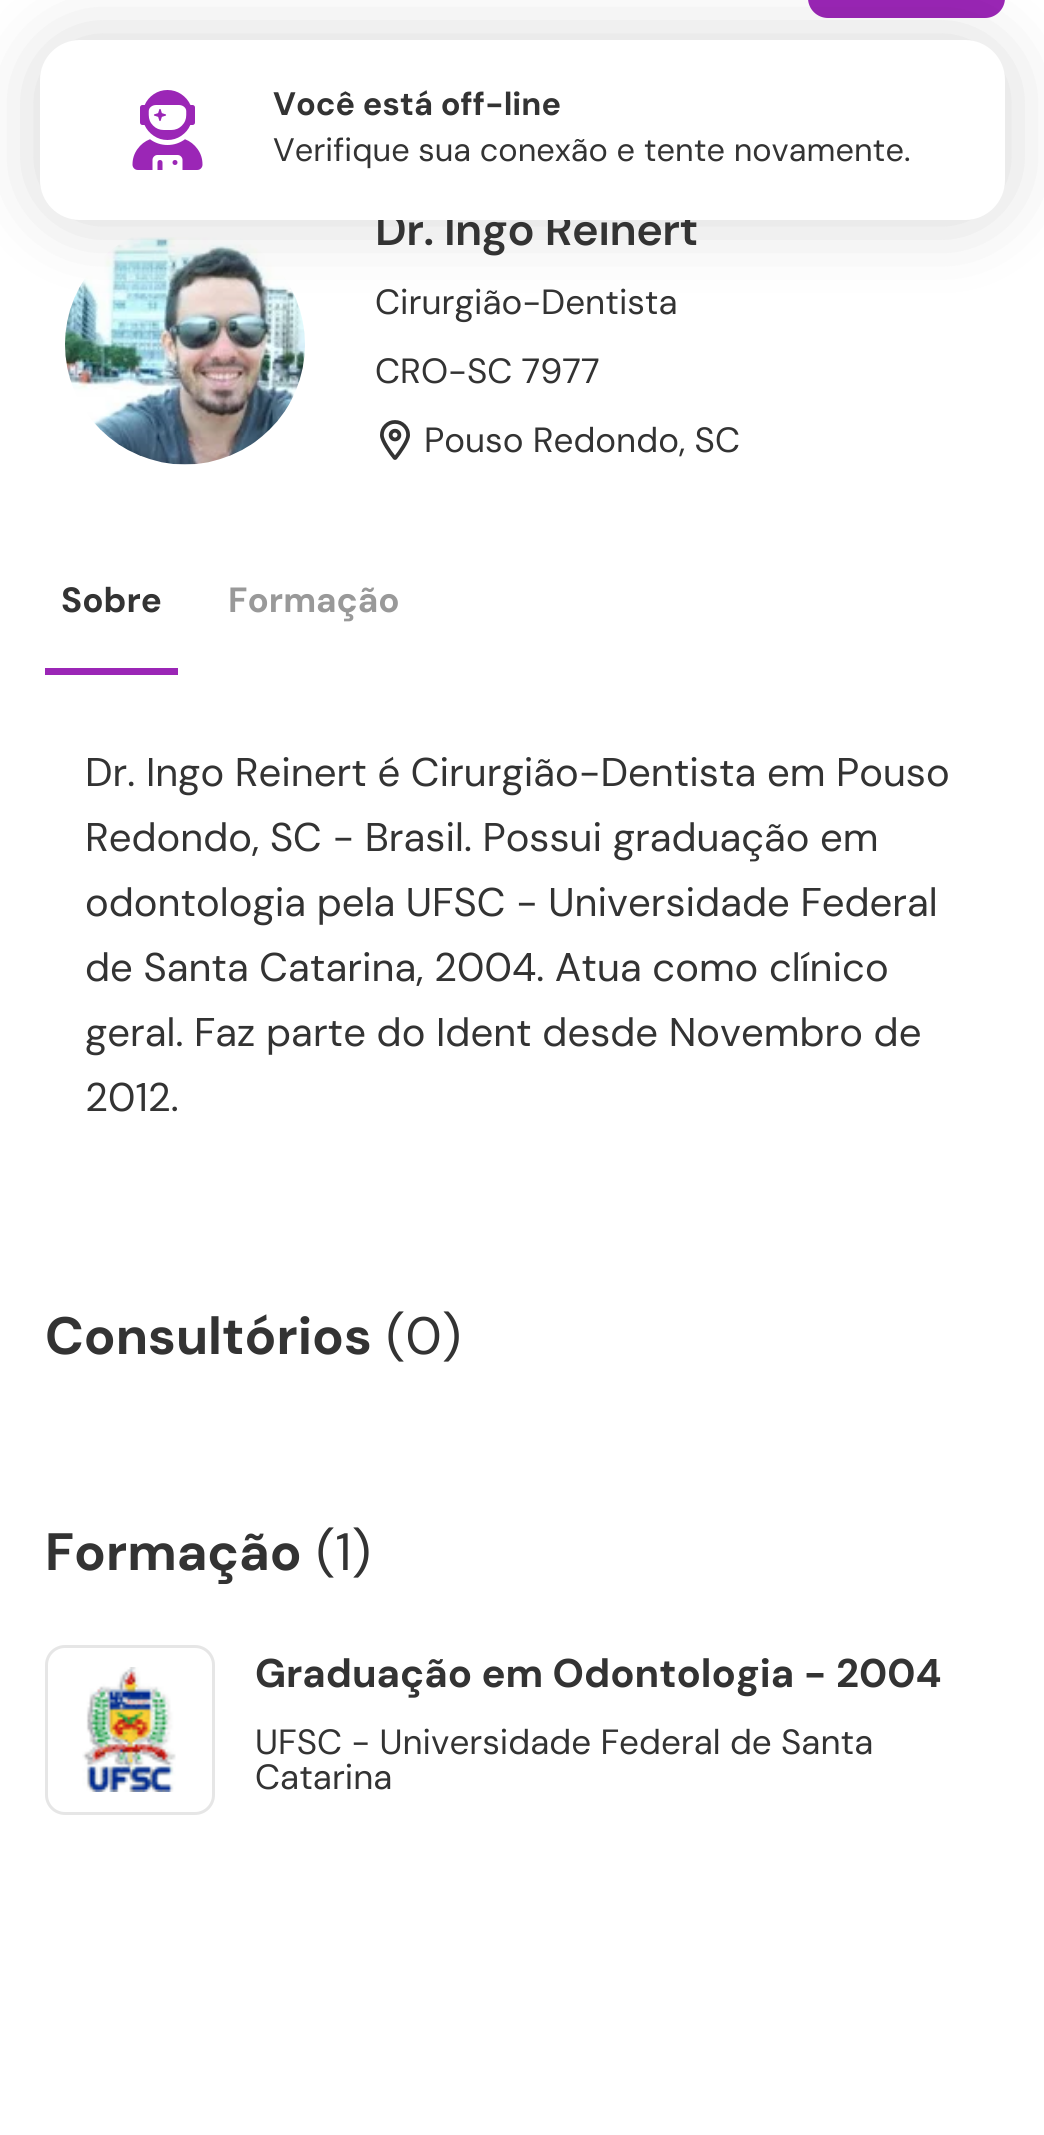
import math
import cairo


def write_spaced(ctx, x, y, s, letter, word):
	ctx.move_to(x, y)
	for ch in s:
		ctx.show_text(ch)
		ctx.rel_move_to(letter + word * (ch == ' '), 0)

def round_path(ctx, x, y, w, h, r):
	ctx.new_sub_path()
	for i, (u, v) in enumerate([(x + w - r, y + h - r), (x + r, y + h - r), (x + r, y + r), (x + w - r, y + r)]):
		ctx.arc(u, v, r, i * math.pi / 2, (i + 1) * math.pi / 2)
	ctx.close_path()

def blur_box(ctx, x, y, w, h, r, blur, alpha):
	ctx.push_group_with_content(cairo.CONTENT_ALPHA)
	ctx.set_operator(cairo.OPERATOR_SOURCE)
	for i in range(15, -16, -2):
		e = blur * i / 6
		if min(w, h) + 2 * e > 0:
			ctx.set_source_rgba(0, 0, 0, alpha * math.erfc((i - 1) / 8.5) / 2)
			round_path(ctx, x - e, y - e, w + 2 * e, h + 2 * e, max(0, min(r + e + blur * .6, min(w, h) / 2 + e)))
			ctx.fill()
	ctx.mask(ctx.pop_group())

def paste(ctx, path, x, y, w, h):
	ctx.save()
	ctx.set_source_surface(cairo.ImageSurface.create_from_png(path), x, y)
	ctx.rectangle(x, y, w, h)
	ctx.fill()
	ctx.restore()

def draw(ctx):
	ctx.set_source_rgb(1, 1, 1)
	ctx.paint()
	ctx.set_source_rgb(0.608, 0.149, 0.714)
	round_path(ctx, 809.5, -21.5, 194, 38, 18.5)
	ctx.fill_preserve()
	ctx.set_line_width(3)
	ctx.stroke()
	round_path(ctx, 41.5, 64.5, 962, 107, 18.5)
	ctx.set_source_rgb(0.953, 0.973, 0.98)
	ctx.stroke()
	paste(ctx, 'media/2.png', 65, 237, 240, 228)
	ctx.set_source_rgb(0, 0, 0)
	blur_box(ctx, 40, 40, 965, 180, 40, 40, 0.16)
	ctx.select_font_face('DM Sans SemiBold')
	ctx.set_font_size(45)
	ctx.set_source_rgb(0.2, 0.2, 0.2)
	write_spaced(ctx, 375, 245, 'Dr. Ingo Reinert', -0.5, 0)
	ctx.set_source_rgb(1, 1, 1)
	round_path(ctx, 40, 40, 965, 180, 40)
	ctx.fill()
	paste(ctx, 'media/1.png', 132, 90, 71, 80)
	ctx.select_font_face('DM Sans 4', cairo.FONT_SLANT_NORMAL, cairo.FONT_WEIGHT_BOLD)
	ctx.set_font_size(32.5)
	ctx.set_source_rgb(0.2, 0.2, 0.2)
	ctx.move_to(273, 115)
	ctx.show_text('Você está off-line')
	ctx.select_font_face('DM Sans 4')
	ctx.move_to(273, 161)
	ctx.show_text('Verifique sua conexão e tente novamente.')
	ctx.select_font_face('DM Sans')
	ctx.set_font_size(35)
	ctx.move_to(375, 314)
	ctx.show_text('Cirurgião-Dentista')
	ctx.move_to(375, 383)
	ctx.show_text('CRO-SC 7977')
	paste(ctx, 'media/3.png', 380, 420, 30, 40)
	ctx.move_to(424, 452)
	ctx.show_text('Pouso Redondo, SC')
	ctx.set_source_rgb(0.608, 0.149, 0.714)
	ctx.rectangle(45, 668, 133, 7)
	ctx.fill()
	ctx.select_font_face('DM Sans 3', cairo.FONT_SLANT_NORMAL, cairo.FONT_WEIGHT_BOLD)
	ctx.set_source_rgb(0.2, 0.2, 0.2)
	ctx.move_to(61, 612)
	ctx.show_text('Sobre')
	ctx.set_source_rgb(0.6, 0.6, 0.6)
	ctx.move_to(228, 612)
	ctx.show_text('Formação')
	ctx.select_font_face('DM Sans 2')
	ctx.set_font_size(40)
	ctx.set_source_rgb(0.2, 0.2, 0.2)
	for x, y, s in [
		(85, 786, 'Dr. Ingo Reinert é Cirurgião-Dentista em Pouso'),
		(85, 851, 'Redondo, SC - Brasil. Possui graduação em'),
		(85, 916, 'odontologia pela UFSC - Universidade Federal'),
		(85, 981, 'de Santa Catarina, 2004. Atua como clínico'),
		(85, 1046, 'geral. Faz parte do Ident desde Novembro de'),
		(85, 1111, '2012.'),
	]:
		ctx.move_to(x, y)
		ctx.show_text(s)
	ctx.select_font_face('DM Sans', cairo.FONT_SLANT_NORMAL, cairo.FONT_WEIGHT_BOLD)
	ctx.set_font_size(52.5)
	ctx.move_to(45, 1354)
	ctx.show_text('Consultórios')
	ctx.select_font_face('DM Sans 3')
	ctx.move_to(386, 1354)
	ctx.show_text('(0)')
	ctx.select_font_face('DM Sans', cairo.FONT_SLANT_NORMAL, cairo.FONT_WEIGHT_BOLD)
	ctx.move_to(45, 1570)
	ctx.show_text('Formação')
	ctx.select_font_face('DM Sans 3')
	ctx.move_to(316, 1570)
	ctx.show_text('(1)')
	round_path(ctx, 46.5, 1646.5, 167, 167, 18.5)
	ctx.set_source_rgb(0.902, 0.902, 0.902)
	ctx.stroke()
	paste(ctx, 'media/4.png', 82, 1667, 94, 125)
	ctx.select_font_face('DM Sans 2', cairo.FONT_SLANT_NORMAL, cairo.FONT_WEIGHT_BOLD)
	ctx.set_font_size(40)
	ctx.set_source_rgb(0.2, 0.2, 0.2)
	ctx.move_to(255, 1687)
	ctx.show_text('Graduação em Odontologia - 2004')
	ctx.select_font_face('DM Sans')
	ctx.set_font_size(35)
	ctx.move_to(255, 1754)
	ctx.show_text('UFSC - Universidade Federal de Santa')
	ctx.move_to(255, 1789)
	ctx.show_text('Catarina')


surface = cairo.ImageSurface(cairo.FORMAT_RGB24, 1044, 2135)
ctx = cairo.Context(surface)
options = cairo.FontOptions()
options.set_hint_metrics(cairo.HINT_METRICS_OFF)
options.set_hint_style(cairo.HINT_STYLE_NONE)
ctx.set_font_options(options)
ctx.set_miter_limit(4)
draw(ctx)
surface.write_to_png('image.png')
